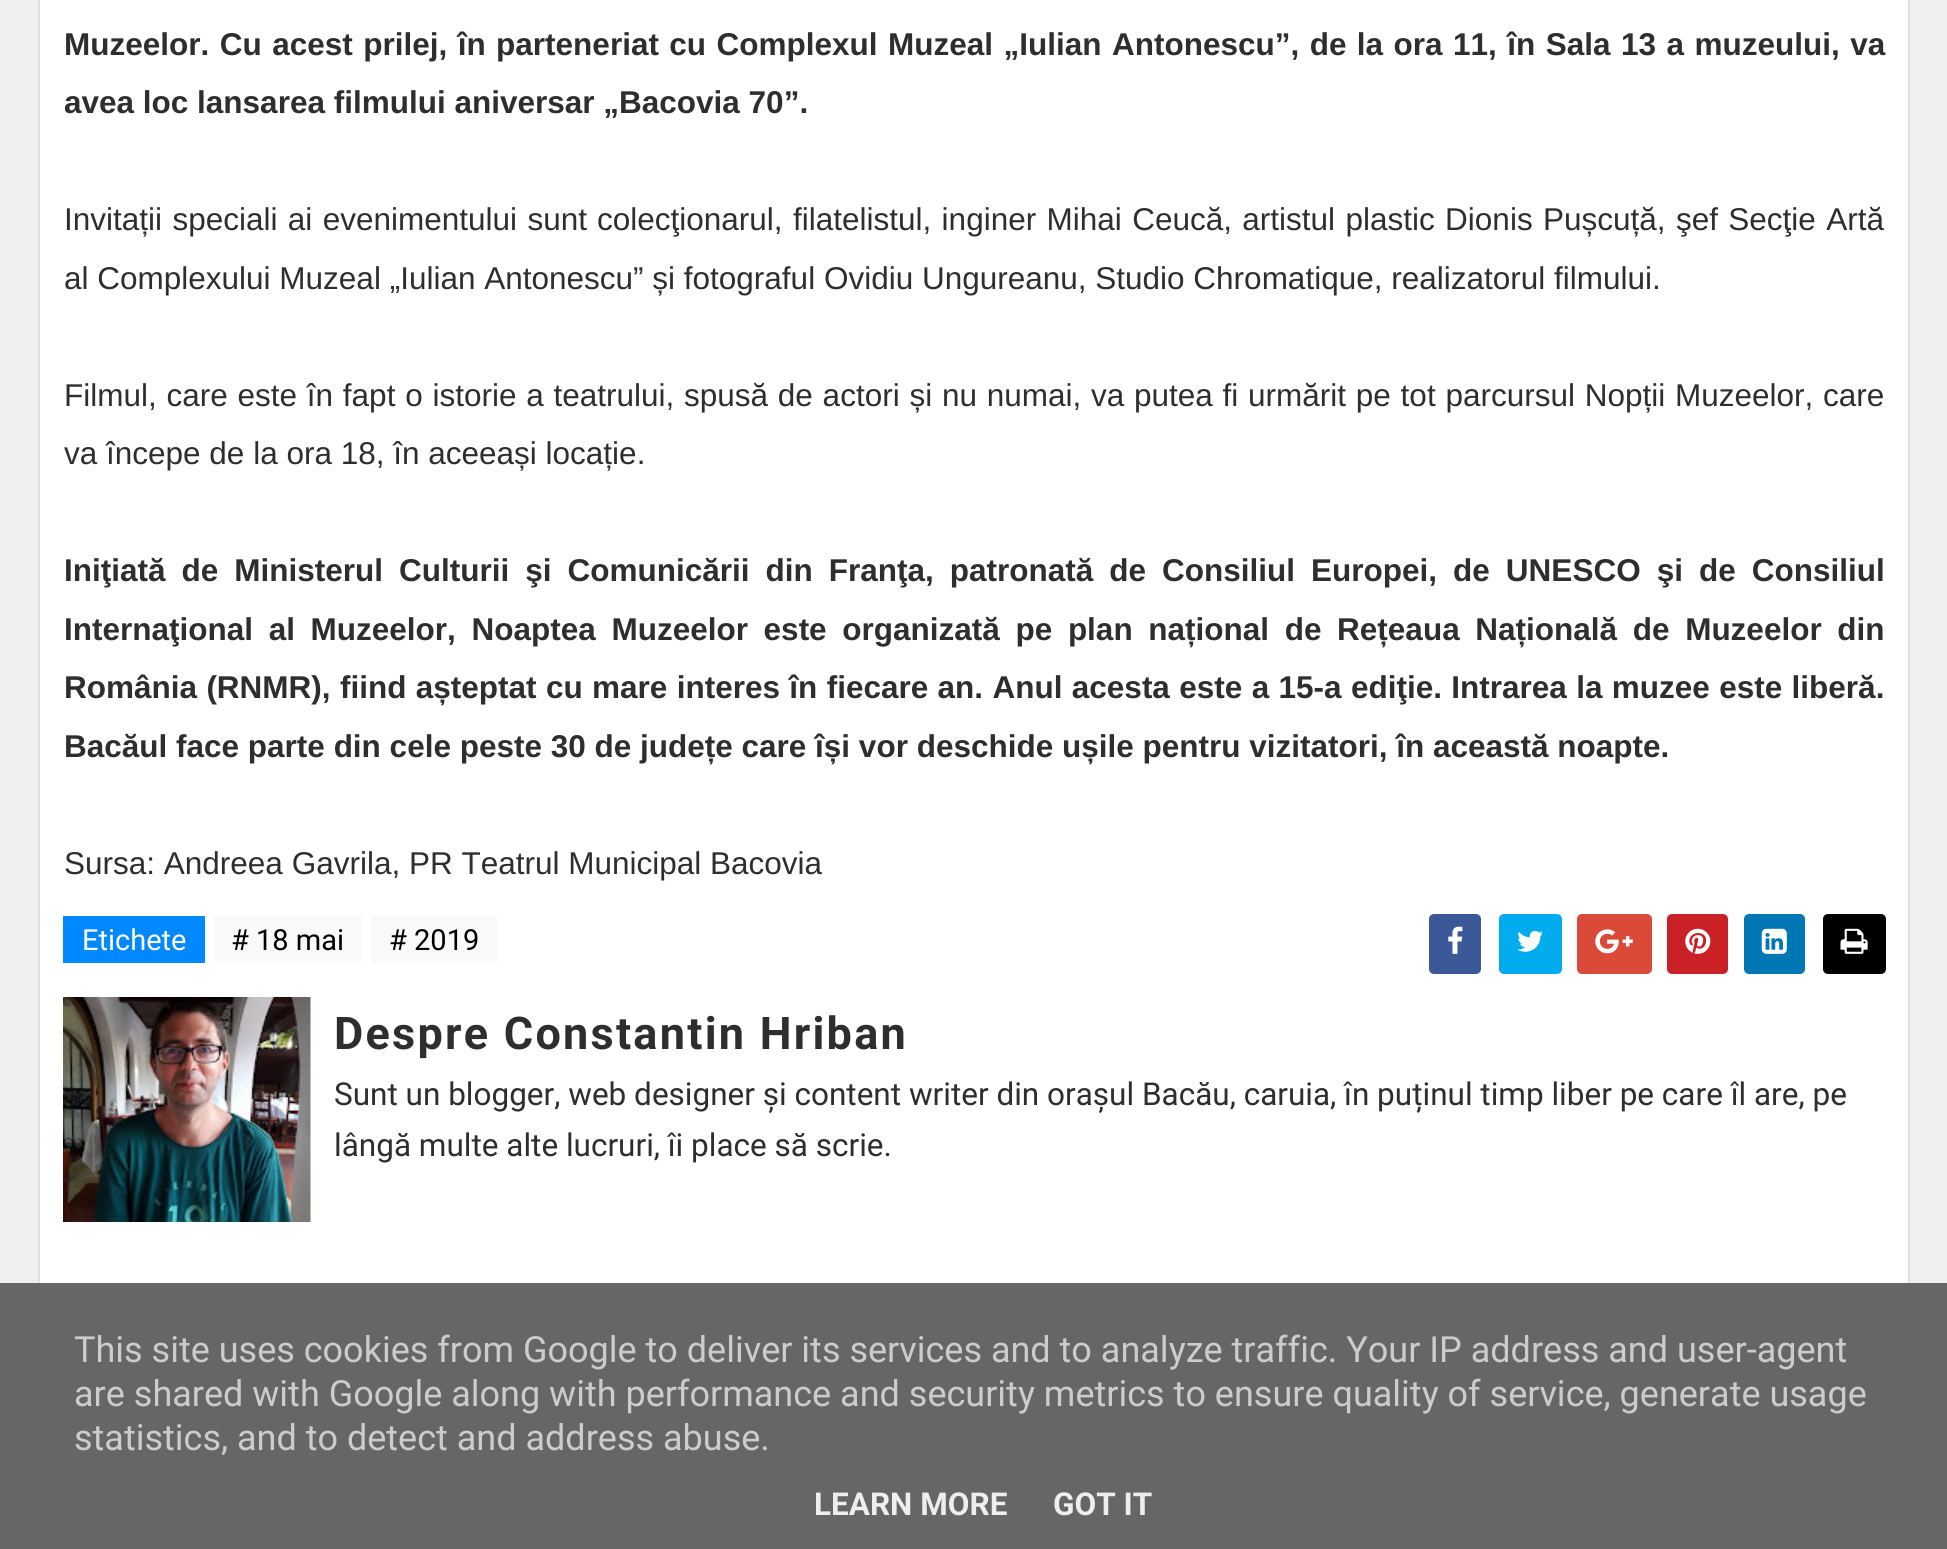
import math
import cairo


def write_spaced(ctx, x, y, s, letter, word):
	ctx.move_to(x, y)
	for ch in s:
		ctx.show_text(ch)
		ctx.rel_move_to(letter + word * (ch == ' '), 0)

def round_path(ctx, x, y, w, h, r):
	ctx.new_sub_path()
	for i, (u, v) in enumerate([(x + w - r, y + h - r), (x + r, y + h - r), (x + r, y + r), (x + w - r, y + r)]):
		ctx.arc(u, v, r, i * math.pi / 2, (i + 1) * math.pi / 2)
	ctx.close_path()

def paste(ctx, path, x, y, w, h):
	ctx.save()
	ctx.set_source_surface(cairo.ImageSurface.create_from_png(path), x, y)
	ctx.rectangle(x, y, w, h)
	ctx.fill()
	ctx.restore()

def draw(ctx):
	ctx.set_source_rgb(0.941, 0.941, 0.941)
	ctx.paint()
	ctx.set_source_rgb(1, 1, 1)
	ctx.rectangle(40, 0, 1868, 1283)
	ctx.fill()
	ctx.rectangle(39, -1, 1870, 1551)
	ctx.set_source_rgb(0.878, 0.878, 0.878)
	ctx.stroke()
	ctx.select_font_face('Liberation Sans', cairo.FONT_SLANT_NORMAL, cairo.FONT_WEIGHT_BOLD)
	ctx.set_font_size(31.5)
	ctx.set_source_rgb(0.18, 0.18, 0.18)
	write_spaced(ctx, 64, 55, 'Muzeelor. Cu acest prilej, în parteneriat cu Complexul Muzeal „Iulian Antonescu”, de la ora 11, în Sala 13 a muzeului, va', 0, 1.7)
	ctx.move_to(64, 113)
	ctx.show_text('avea loc lansarea filmului aniversar „Bacovia 70”.')
	ctx.select_font_face('Liberation Sans')
	write_spaced(ctx, 64, 230, 'Invitații speciali ai evenimentului sunt', 0, 1.6)
	write_spaced(ctx, 597, 230, 'colecţionarul, filatelistul, inginer Mihai Ceucă, artistul plastic Dionis Pușcuță, şef Secţie Artă', 0, 1.6)
	ctx.move_to(64, 289)
	ctx.show_text('al Complexului Muzeal „Iulian Antonescu” și fotograful Ovidiu Ungureanu, Studio Chromatique, realizatorul filmului.')
	write_spaced(ctx, 64, 406, 'Filmul, care este în fapt o istorie a teatrului, spusă de actori și nu numai, va putea fi urmărit pe tot parcursul Nopții Muzeelor, care', 0, 1)
	ctx.move_to(64, 464)
	ctx.show_text('va începe de la ora 18, în aceeași locație.')
	ctx.select_font_face('Liberation Sans', cairo.FONT_SLANT_NORMAL, cairo.FONT_WEIGHT_BOLD)
	write_spaced(ctx, 64, 581, 'Iniţiată de Ministerul Culturii şi Comunicării din Franţa, patronată de Consiliul Europei, de UNESCO şi de Consiliul', 0, 7.25)
	write_spaced(ctx, 64, 640, 'Internaţional al Muzeelor, Noaptea Muzeelor este organizată pe plan național de Rețeaua Națională de Muzeelor din', 0, 6.9)
	write_spaced(ctx, 64, 698, 'România (RNMR), fiind așteptat cu mare interes în fiecare an. Anul acesta este a 15-a ediţie. Intrarea la muzee este liberă.', 0, 0.6)
	ctx.move_to(64, 757)
	ctx.show_text('Bacăul face parte din cele peste 30 de județe care își vor deschide ușile pentru vizitatori, în această noapte.')
	ctx.select_font_face('Liberation Sans')
	ctx.move_to(64, 874)
	ctx.show_text('Sursa: Andreea Gavrila, PR Teatrul Municipal Bacovia')
	ctx.set_source_rgb(0, 0.533, 1)
	ctx.rectangle(63, 916, 142, 47)
	ctx.fill()
	ctx.select_font_face('Roboto')
	ctx.set_font_size(29)
	ctx.set_source_rgb(1, 1, 1)
	ctx.move_to(82, 950)
	ctx.show_text('Etichete')
	ctx.set_source_rgb(0.973, 0.973, 0.973)
	ctx.rectangle(214, 916, 148, 47)
	ctx.fill()
	ctx.set_source_rgb(0, 0, 0)
	ctx.move_to(231, 950)
	ctx.show_text('# 18 mai')
	ctx.set_source_rgb(0.973, 0.973, 0.973)
	ctx.rectangle(371, 916, 126, 47)
	ctx.fill()
	ctx.set_source_rgb(0, 0, 0)
	ctx.move_to(389, 950)
	ctx.show_text('# 2019')
	ctx.set_source_rgb(0.231, 0.349, 0.596)
	round_path(ctx, 1429, 914, 52, 60, 5)
	ctx.fill()
	paste(ctx, 'media/1.png', 1448, 926, 15, 28)
	ctx.set_source_rgb(0, 0.675, 0.933)
	round_path(ctx, 1499, 914, 63, 60, 5)
	ctx.fill()
	paste(ctx, 'media/2.png', 1517, 930, 26, 22)
	ctx.set_source_rgb(0.859, 0.29, 0.224)
	round_path(ctx, 1577, 914, 75, 60, 5)
	ctx.fill()
	paste(ctx, 'media/3.png', 1595, 929, 38, 25)
	ctx.set_source_rgb(0.792, 0.129, 0.153)
	round_path(ctx, 1667, 914, 61, 60, 5)
	ctx.fill()
	paste(ctx, 'media/4.png', 1685, 928, 26, 26)
	ctx.set_source_rgb(0, 0.467, 0.71)
	round_path(ctx, 1744, 914, 61, 60, 5)
	ctx.fill()
	paste(ctx, 'media/5.png', 1761, 928, 26, 26)
	ctx.set_source_rgb(0.004, 0.004, 0.004)
	round_path(ctx, 1823, 914, 63, 60, 5)
	ctx.fill()
	paste(ctx, 'media/6.png', 1840, 928, 28, 26)
	paste(ctx, 'media/7.png', 63, 997, 248, 225)
	ctx.select_font_face('Roboto', cairo.FONT_SLANT_NORMAL, cairo.FONT_WEIGHT_BOLD)
	ctx.set_font_size(45)
	ctx.set_source_rgb(0.18, 0.18, 0.18)
	write_spaced(ctx, 334, 1049, 'Despre Constantin Hriban', 2.25, 0)
	ctx.select_font_face('Roboto')
	ctx.set_font_size(31.5)
	ctx.move_to(334, 1105)
	ctx.show_text('Sunt un blogger, web designer și content writer din orașul Bacău, caruia, în puținul timp liber pe care îl are, pe')
	ctx.move_to(334, 1156)
	ctx.show_text('lângă multe alte lucruri, îi place să scrie.')
	ctx.set_source_rgb(0.4, 0.4, 0.4)
	ctx.rectangle(0, 1283, 1947, 266)
	ctx.fill()
	ctx.set_font_size(36)
	ctx.set_source_rgb(0.8, 0.8, 0.8)
	for x, y, s in [
		(74, 1362, 'This site uses cookies from Google to deliver its services and to analyze traffic. Your IP address and user-agent'),
		(74, 1406, 'are shared with Google along with performance and security metrics to ensure quality of service, generate usage'),
		(74, 1450, 'statistics, and to detect and address abuse.'),
	]:
		ctx.move_to(x, y)
		ctx.show_text(s)
	ctx.select_font_face('Roboto', cairo.FONT_SLANT_NORMAL, cairo.FONT_WEIGHT_BOLD)
	ctx.set_font_size(31.5)
	ctx.set_source_rgb(0.933, 0.933, 0.933)
	ctx.move_to(814, 1515)
	ctx.show_text('LEARN MORE')
	ctx.move_to(1053, 1515)
	ctx.show_text('GOT IT')


surface = cairo.ImageSurface(cairo.FORMAT_RGB24, 1947, 1549)
ctx = cairo.Context(surface)
options = cairo.FontOptions()
options.set_hint_metrics(cairo.HINT_METRICS_OFF)
options.set_hint_style(cairo.HINT_STYLE_NONE)
ctx.set_font_options(options)
ctx.set_miter_limit(4)
draw(ctx)
surface.write_to_png('image.png')
